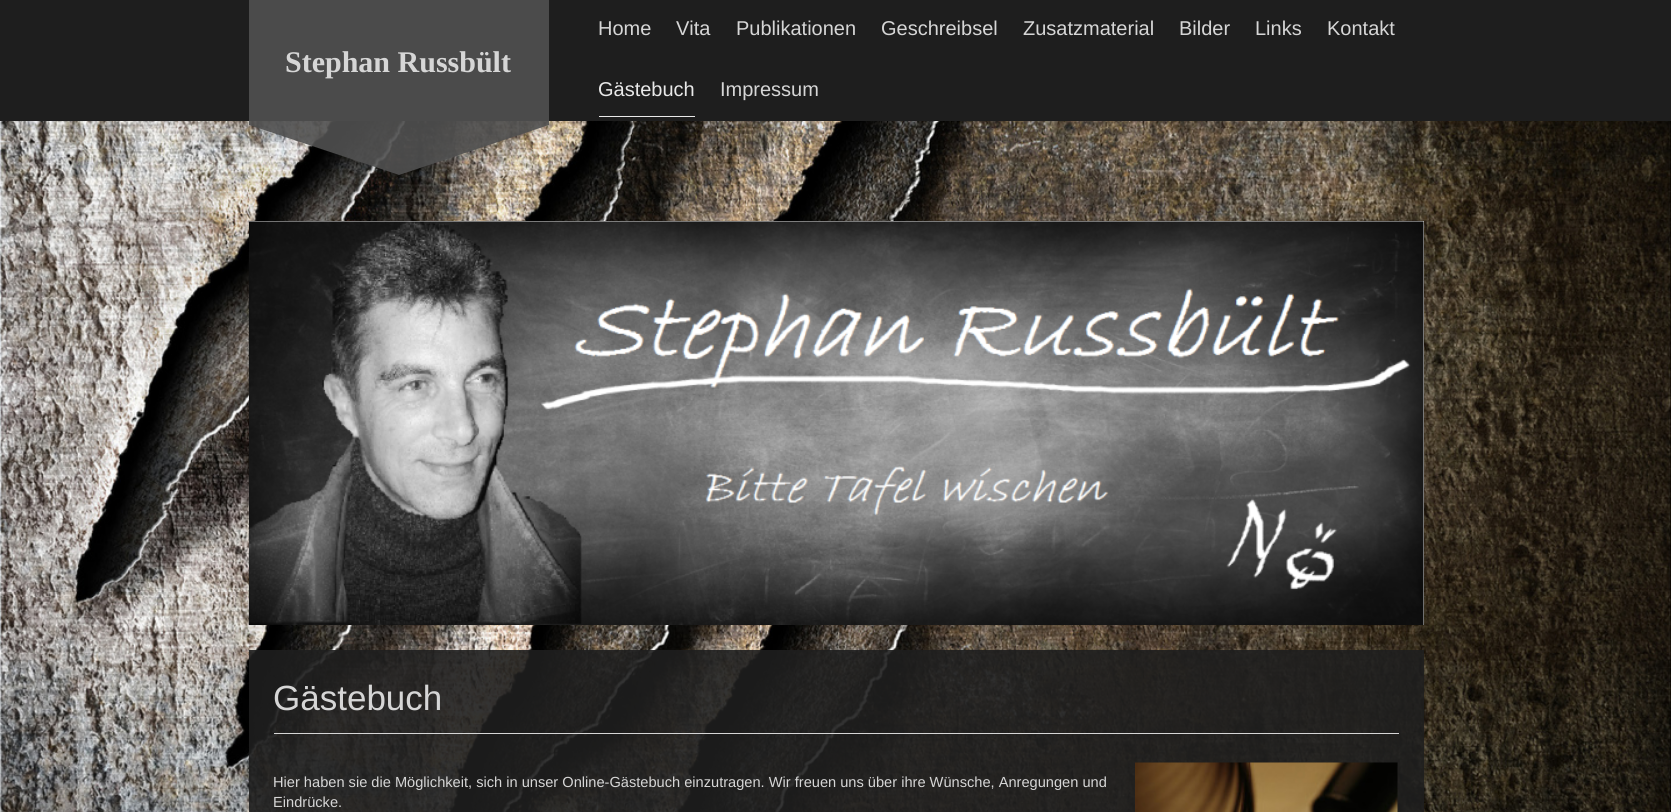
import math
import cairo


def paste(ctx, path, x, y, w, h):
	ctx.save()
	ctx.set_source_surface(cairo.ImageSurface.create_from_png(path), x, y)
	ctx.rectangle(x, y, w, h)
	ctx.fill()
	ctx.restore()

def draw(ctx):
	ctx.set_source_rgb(1, 1, 1)
	ctx.paint()
	paste(ctx, 'media/1.png', 0, 121, 1671, 691)
	ctx.set_source_rgb(0.118, 0.118, 0.118)
	ctx.rectangle(0, 0, 1671, 121)
	ctx.fill()
	ctx.set_source_rgba(0.314, 0.314, 0.314, 0.9)
	ctx.rectangle(249, 0, 300, 125)
	ctx.fill()
	ctx.select_font_face('Liberation Serif', cairo.FONT_SLANT_NORMAL, cairo.FONT_WEIGHT_BOLD)
	ctx.set_font_size(30)
	ctx.set_source_rgb(0.839, 0.839, 0.839)
	ctx.move_to(285, 72)
	ctx.show_text('Stephan Russbült')
	ctx.set_source_rgba(0.314, 0.314, 0.314, 0.9)
	ctx.new_path()
	ctx.move_to(249, 125)
	ctx.line_to(549, 125)
	ctx.line_to(399, 175)
	ctx.close_path()
	ctx.fill()
	ctx.select_font_face('Liberation Sans')
	ctx.set_font_size(20)
	ctx.set_source_rgb(0.839, 0.839, 0.839)
	for x, y, s in [
		(598, 35, 'Home'),
		(676, 35, 'Vita'),
		(736, 35, 'Publikationen'),
		(881, 35, 'Geschreibsel'),
		(1023, 35, 'Zusatzmaterial'),
		(1179, 35, 'Bilder'),
		(1255, 35, 'Links'),
		(1327, 35, 'Kontakt'),
	]:
		ctx.move_to(x, y)
		ctx.show_text(s)
	ctx.set_source_rgb(0.914, 0.914, 0.914)
	ctx.rectangle(599, 116, 96, 1)
	ctx.fill()
	ctx.move_to(598, 96)
	ctx.show_text('Gästebuch')
	ctx.set_source_rgb(0.839, 0.839, 0.839)
	ctx.move_to(720, 96)
	ctx.show_text('Impressum')
	paste(ctx, 'media/2.png', 248, 221, 1, 404)
	ctx.set_source_rgb(0.933, 0.933, 0.933)
	ctx.rectangle(249, 221, 1175, 404)
	ctx.fill()
	paste(ctx, 'media/3.png', 248, 221, 1176, 404)
	ctx.set_source_rgba(0.118, 0.118, 0.118, 0.9)
	ctx.rectangle(249, 650, 1175, 162)
	ctx.fill()
	ctx.set_source_rgb(0.839, 0.839, 0.839)
	ctx.rectangle(274, 733, 1125, 1)
	ctx.fill()
	ctx.set_font_size(35)
	ctx.move_to(273, 710)
	ctx.show_text('Gästebuch')
	ctx.set_font_size(14.62)
	ctx.move_to(273, 787)
	ctx.show_text('Hier haben sie die Möglichkeit, sich in unser Online-Gästebuch einzutragen. Wir freuen uns über ihre Wünsche, Anregungen und')
	ctx.move_to(273, 807)
	ctx.show_text('Eindrücke.')
	paste(ctx, 'media/4.png', 1135, 762, 263, 50)


surface = cairo.ImageSurface(cairo.FORMAT_RGB24, 1671, 812)
ctx = cairo.Context(surface)
options = cairo.FontOptions()
options.set_hint_metrics(cairo.HINT_METRICS_OFF)
options.set_hint_style(cairo.HINT_STYLE_NONE)
ctx.set_font_options(options)
ctx.set_miter_limit(4)
draw(ctx)
surface.write_to_png('image.png')
